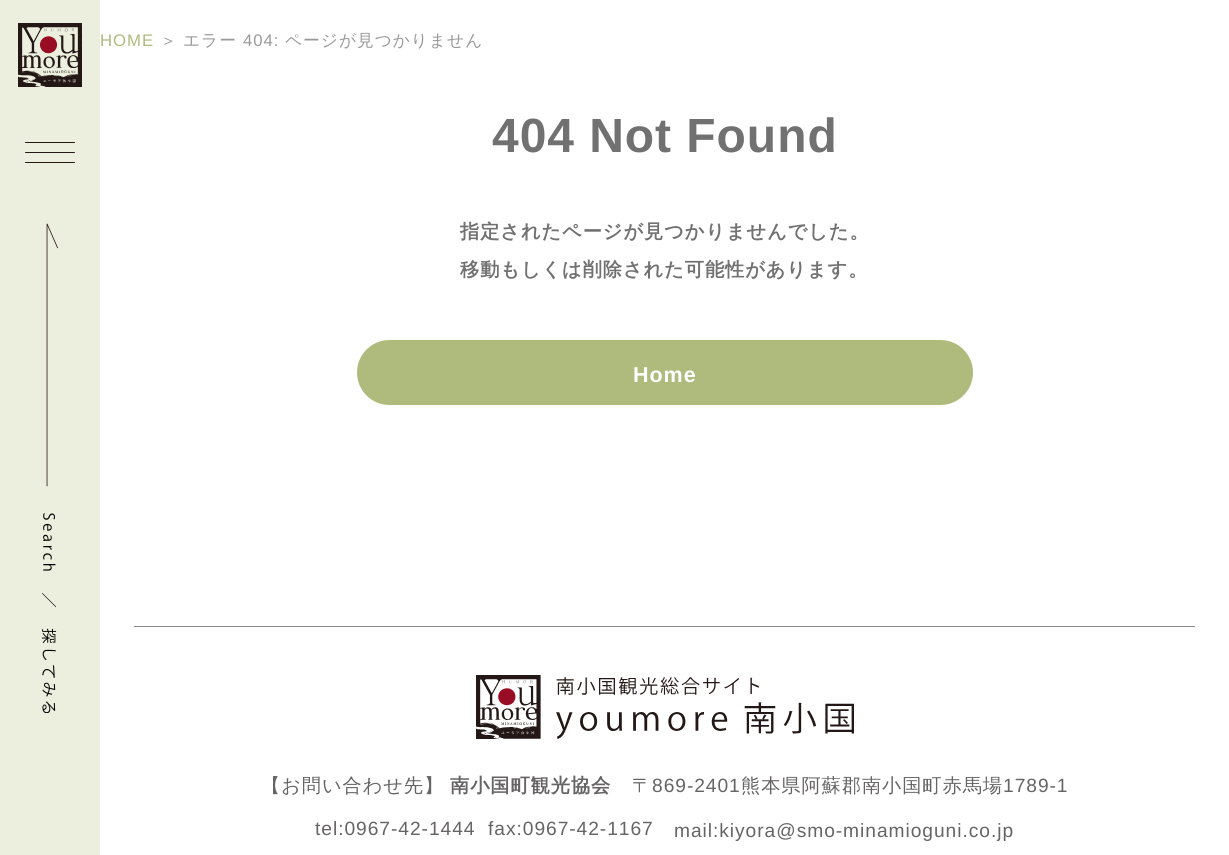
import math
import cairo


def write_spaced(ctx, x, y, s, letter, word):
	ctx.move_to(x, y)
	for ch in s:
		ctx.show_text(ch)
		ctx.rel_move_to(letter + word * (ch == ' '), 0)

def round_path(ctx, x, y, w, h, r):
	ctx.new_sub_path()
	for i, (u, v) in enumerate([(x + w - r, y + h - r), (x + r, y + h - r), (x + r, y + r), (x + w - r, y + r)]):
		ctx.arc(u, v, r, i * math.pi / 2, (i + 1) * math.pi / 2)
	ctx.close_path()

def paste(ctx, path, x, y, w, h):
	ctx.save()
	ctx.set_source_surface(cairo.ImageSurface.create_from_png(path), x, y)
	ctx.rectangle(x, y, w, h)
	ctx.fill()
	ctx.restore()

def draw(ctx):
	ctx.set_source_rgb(1, 1, 1)
	ctx.paint()
	ctx.set_source_rgb(0.922, 0.933, 0.871)
	ctx.rectangle(0, 0, 100, 855)
	ctx.fill()
	paste(ctx, 'media/1.png', 18, 23, 64, 64)
	ctx.set_source_rgb(0.137, 0.094, 0.082)
	round_path(ctx, 25, 142, 50, 1, 0.5)
	ctx.fill()
	round_path(ctx, 25, 152, 50, 1, 0.5)
	ctx.fill()
	round_path(ctx, 25, 162, 50, 1, 0.5)
	ctx.fill()
	paste(ctx, 'media/2.png', 42, 223, 16, 490)
	ctx.select_font_face('Liberation Sans')
	ctx.set_font_size(16.75)
	ctx.set_source_rgb(0.686, 0.729, 0.49)
	write_spaced(ctx, 100, 46, 'HOME', 0.95, 0)
	ctx.select_font_face('WenQuanYi Zen Hei Medium')
	ctx.set_source_rgb(0.6, 0.6, 0.6)
	write_spaced(ctx, 160, 46, '＞', 0.95, 0)
	write_spaced(ctx, 183, 46, 'エラー', 0.95, 0)
	ctx.select_font_face('Liberation Sans')
	write_spaced(ctx, 243, 46, '404:', 0.95, 0)
	ctx.select_font_face('WenQuanYi Zen Hei Medium')
	write_spaced(ctx, 285, 46, 'ページが見つかりません', 0.95, 0)
	ctx.select_font_face('Liberation Sans', cairo.FONT_SLANT_NORMAL, cairo.FONT_WEIGHT_BOLD)
	ctx.set_font_size(48)
	ctx.set_source_rgb(0.447, 0.443, 0.443)
	write_spaced(ctx, 492, 152, '404 Not Found', 0.95, 0)
	ctx.select_font_face('WenQuanYi Zen Hei', cairo.FONT_SLANT_NORMAL, cairo.FONT_WEIGHT_BOLD)
	ctx.set_font_size(19.2)
	write_spaced(ctx, 460, 238, '指定されたページが見つかりませんでした。', 0.95, 0)
	write_spaced(ctx, 460, 276, '移動もしくは削除された可能性があります。', 0.95, 0)
	ctx.set_source_rgb(0.686, 0.729, 0.49)
	round_path(ctx, 358, 341, 614, 63, 31.5)
	ctx.fill_preserve()
	ctx.stroke()
	ctx.select_font_face('Liberation Sans', cairo.FONT_SLANT_NORMAL, cairo.FONT_WEIGHT_BOLD)
	ctx.set_font_size(21.5)
	ctx.set_source_rgb(1, 1, 1)
	write_spaced(ctx, 633, 382, 'Home', 0.95, 0)
	ctx.set_source_rgb(0.537, 0.537, 0.537)
	ctx.rectangle(134, 626, 1061, 1)
	ctx.fill()
	paste(ctx, 'media/3.png', 476, 675, 378, 64)
	ctx.select_font_face('WenQuanYi Zen Hei Medium')
	ctx.set_font_size(19.2)
	ctx.set_source_rgb(0.4, 0.392, 0.392)
	write_spaced(ctx, 261, 792, '【お問い合わせ先】', 0.95, 0)
	ctx.select_font_face('WenQuanYi Zen Hei', cairo.FONT_SLANT_NORMAL, cairo.FONT_WEIGHT_BOLD)
	write_spaced(ctx, 450, 792, '南小国町観光協会', 0.95, 0)
	ctx.select_font_face('WenQuanYi Zen Hei Medium')
	write_spaced(ctx, 632, 792, '〒', 0.95, 0)
	ctx.select_font_face('Liberation Sans')
	write_spaced(ctx, 652, 792, '869-2401', 0.95, 0)
	ctx.select_font_face('WenQuanYi Zen Hei Medium')
	write_spaced(ctx, 741, 792, '熊本県阿蘇郡南小国町赤馬場', 0.95, 0)
	ctx.select_font_face('Liberation Sans')
	for x, y, s in [
		(1003, 792, '1789-1'),
		(315, 835, 'tel:0967-42-1444'),
		(488, 835, 'fax:0967-42-1167'),
		(674, 837, 'mail:kiyora@smo-minamioguni.co.jp'),
	]:
		write_spaced(ctx, x, y, s, 0.95, 0)


surface = cairo.ImageSurface(cairo.FORMAT_RGB24, 1229, 855)
ctx = cairo.Context(surface)
options = cairo.FontOptions()
options.set_hint_metrics(cairo.HINT_METRICS_OFF)
options.set_hint_style(cairo.HINT_STYLE_NONE)
ctx.set_font_options(options)
ctx.set_miter_limit(4)
draw(ctx)
surface.write_to_png('image.png')
